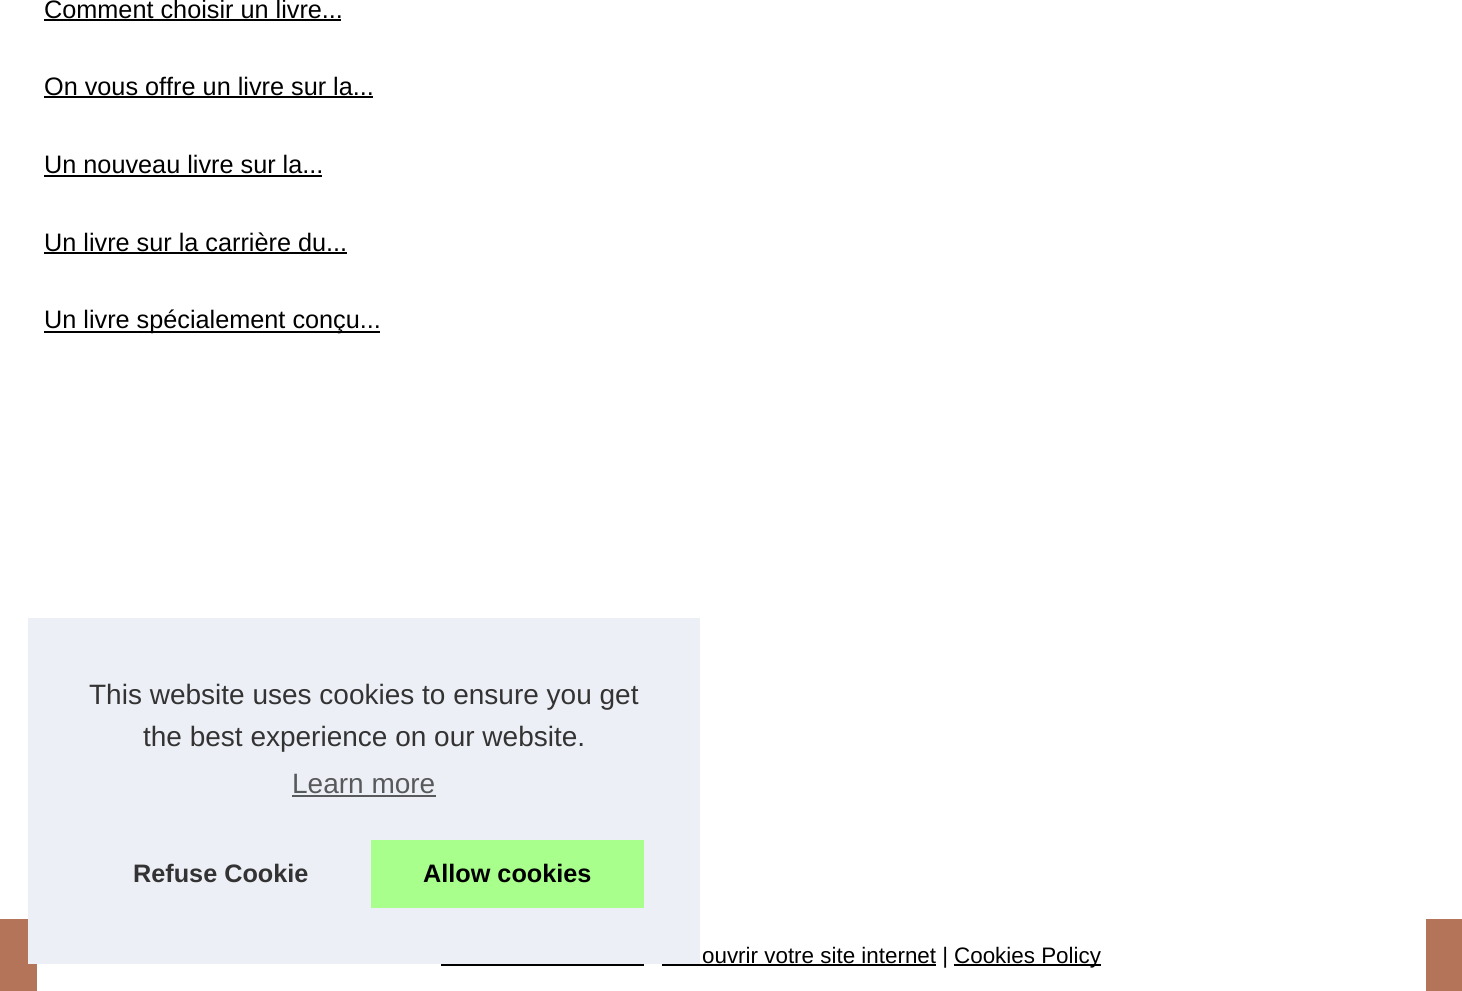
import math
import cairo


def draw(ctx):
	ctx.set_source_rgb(0.706, 0.455, 0.353)
	ctx.paint()
	ctx.set_source_rgb(1, 1, 1)
	ctx.rectangle(0, 0, 1462, 919)
	ctx.fill()
	ctx.select_font_face('Liberation Sans')
	ctx.set_font_size(25.25)
	ctx.set_source_rgb(0, 0, 0)
	ctx.move_to(44, 18)
	ctx.show_text('Comment choisir un livre...')
	ctx.rectangle(44, 19, 297, 2)
	ctx.fill()
	ctx.move_to(44, 95)
	ctx.show_text('On vous offre un livre sur la...')
	ctx.rectangle(44, 96, 329, 2)
	ctx.fill()
	ctx.move_to(44, 173)
	ctx.show_text('Un nouveau livre sur la...')
	ctx.rectangle(44, 175, 278, 2)
	ctx.fill()
	ctx.move_to(44, 251)
	ctx.show_text('Un livre sur la carrière du...')
	ctx.rectangle(44, 252, 303, 2)
	ctx.fill()
	ctx.rectangle(44, 331, 336, 2)
	ctx.fill()
	ctx.move_to(44, 328)
	ctx.show_text('Un livre spécialement conçu...')
	ctx.set_source_rgb(1, 1, 1)
	ctx.rectangle(37, 919, 1389, 72)
	ctx.fill()
	ctx.set_source_rgb(0.929, 0.937, 0.961)
	ctx.rectangle(28, 618, 672, 346)
	ctx.fill()
	ctx.set_font_size(28)
	ctx.set_source_rgb(0.2, 0.2, 0.2)
	ctx.move_to(89, 704)
	ctx.show_text('This website uses cookies to ensure you get')
	ctx.move_to(143, 746)
	ctx.show_text('the best experience on our website.')
	ctx.set_source_rgb(0.345, 0.349, 0.353)
	ctx.move_to(292, 793)
	ctx.show_text('Learn more')
	ctx.rectangle(292, 795, 144, 2)
	ctx.fill()
	ctx.select_font_face('Liberation Sans', cairo.FONT_SLANT_NORMAL, cairo.FONT_WEIGHT_BOLD)
	ctx.set_font_size(25.25)
	ctx.set_source_rgb(0.2, 0.2, 0.2)
	ctx.move_to(133, 882)
	ctx.show_text('Refuse Cookie')
	ctx.set_source_rgb(0.659, 1, 0.549)
	ctx.rectangle(371, 840, 273, 68)
	ctx.fill()
	ctx.set_source_rgb(0, 0, 0)
	ctx.move_to(423, 882)
	ctx.show_text('Allow cookies')
	ctx.rectangle(441, 964, 203, 2)
	ctx.fill()
	ctx.rectangle(662, 964, 274, 2)
	ctx.fill()
	ctx.select_font_face('Liberation Sans')
	ctx.set_font_size(22.4)
	ctx.move_to(702, 963)
	ctx.show_text('ouvrir votre site internet |')
	ctx.rectangle(954, 964, 147, 2)
	ctx.fill()
	ctx.move_to(954, 963)
	ctx.show_text('Cookies Policy')


surface = cairo.ImageSurface(cairo.FORMAT_RGB24, 1462, 991)
ctx = cairo.Context(surface)
options = cairo.FontOptions()
options.set_hint_metrics(cairo.HINT_METRICS_OFF)
options.set_hint_style(cairo.HINT_STYLE_NONE)
ctx.set_font_options(options)
ctx.set_miter_limit(4)
draw(ctx)
surface.write_to_png('image.png')
